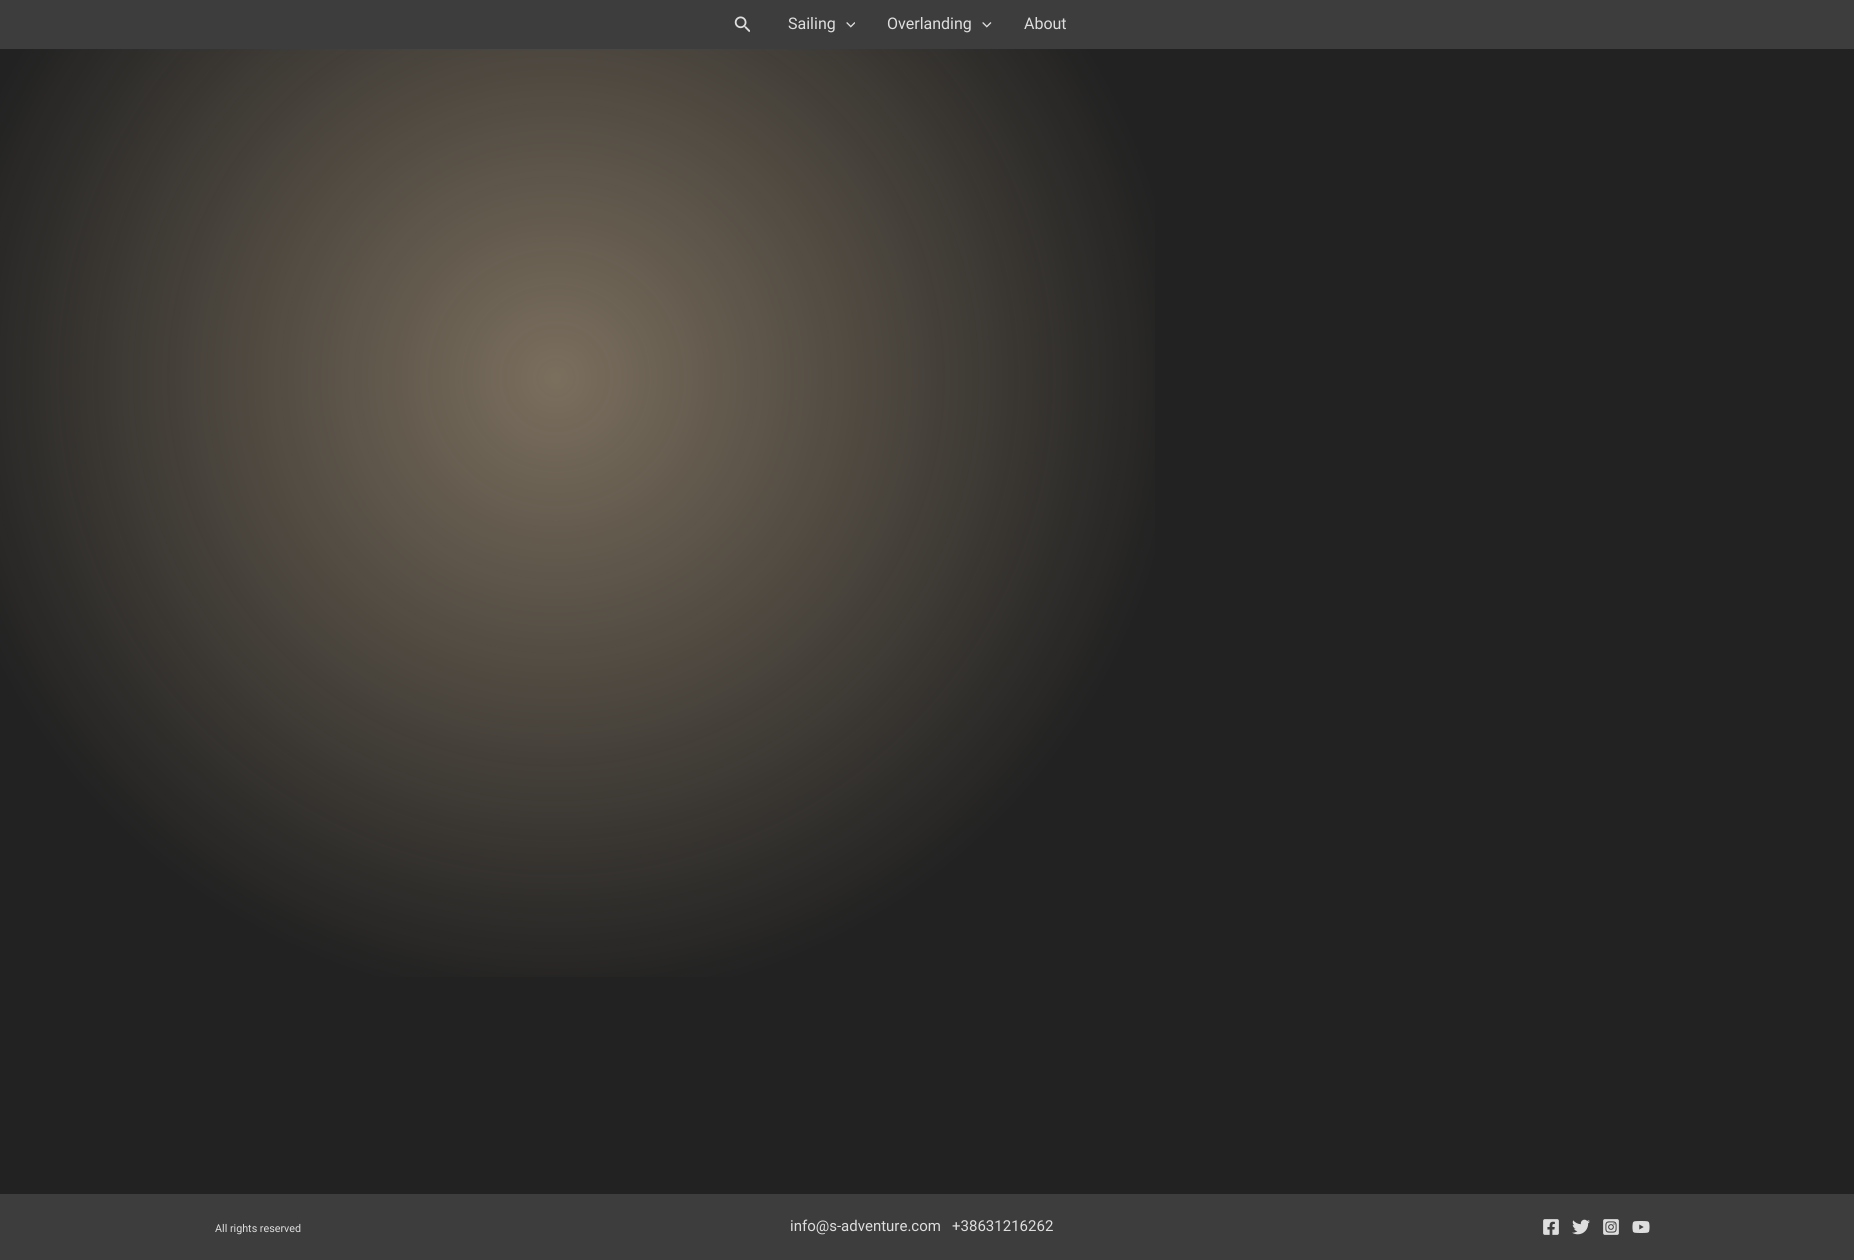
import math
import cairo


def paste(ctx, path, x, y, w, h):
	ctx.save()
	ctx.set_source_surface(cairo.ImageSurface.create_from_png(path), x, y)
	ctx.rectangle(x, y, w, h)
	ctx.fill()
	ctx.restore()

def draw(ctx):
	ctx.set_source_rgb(0.133, 0.133, 0.133)
	ctx.paint()
	ctx.set_source_rgb(0.239, 0.239, 0.239)
	ctx.rectangle(0, 0, 1854, 49)
	ctx.fill()
	paste(ctx, 'media/1.png', 734, 16, 16, 17)
	ctx.select_font_face('Roboto')
	ctx.set_font_size(16)
	ctx.set_source_rgb(0.871, 0.871, 0.871)
	ctx.move_to(788, 29)
	ctx.show_text('Sailing')
	paste(ctx, 'media/2.png', 846, 22, 9, 6)
	ctx.move_to(887, 29)
	ctx.show_text('Overlanding')
	paste(ctx, 'media/3.png', 982, 22, 10, 6)
	ctx.move_to(1024, 29)
	ctx.show_text('About')
	ctx.set_source_rgb(0.239, 0.239, 0.239)
	ctx.rectangle(0, 1194, 1854, 66)
	ctx.fill()
	ctx.set_font_size(10.75)
	ctx.set_source_rgb(0.871, 0.871, 0.871)
	ctx.move_to(215, 1232)
	ctx.show_text('All rights reserved')
	ctx.set_font_size(15)
	ctx.move_to(790, 1231)
	ctx.show_text('info@s-adventure.com   +38631216262')
	paste(ctx, 'media/4.png', 1543, 1219, 16, 16)
	paste(ctx, 'media/5.png', 1572, 1219, 18, 16)
	paste(ctx, 'media/6.png', 1603, 1219, 16, 16)
	paste(ctx, 'media/7.png', 1632, 1221, 18, 12)
	gradient = cairo.RadialGradient(556, 378, 0, 556, 378, 1569)
	gradient.add_color_stop_rgba(0, 0.827, 0.733, 0.6, 0.5)
	gradient.add_color_stop_rgba(0.4, 0.827, 0.733, 0.6, 0)
	ctx.set_source(gradient)
	ctx.rectangle(0, 49, 1155, 928)
	ctx.fill()


surface = cairo.ImageSurface(cairo.FORMAT_RGB24, 1854, 1260)
ctx = cairo.Context(surface)
options = cairo.FontOptions()
options.set_hint_metrics(cairo.HINT_METRICS_OFF)
options.set_hint_style(cairo.HINT_STYLE_NONE)
ctx.set_font_options(options)
ctx.set_miter_limit(4)
draw(ctx)
surface.write_to_png('image.png')
